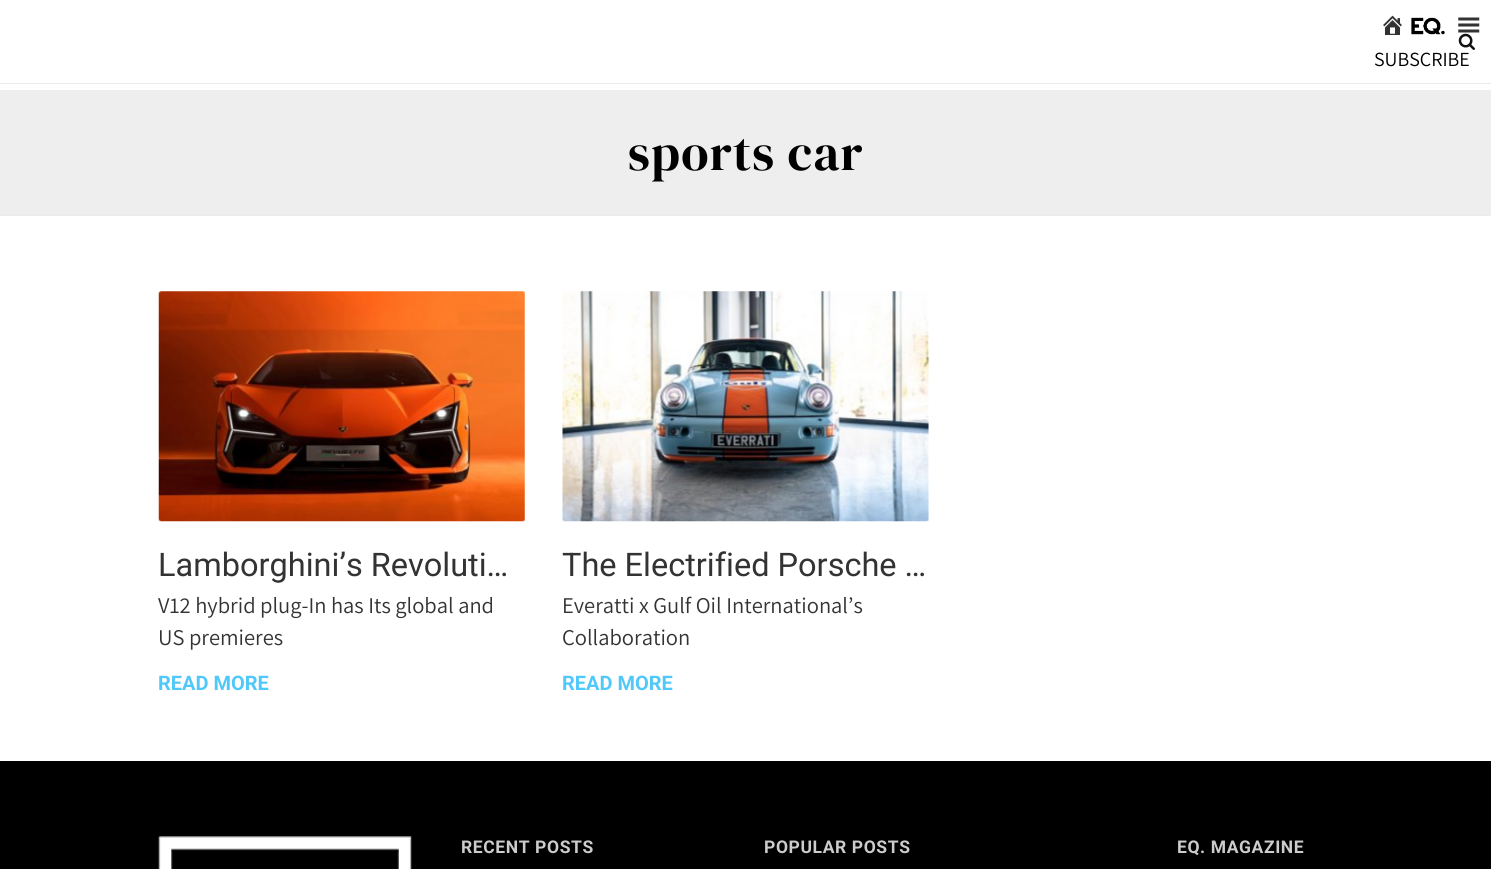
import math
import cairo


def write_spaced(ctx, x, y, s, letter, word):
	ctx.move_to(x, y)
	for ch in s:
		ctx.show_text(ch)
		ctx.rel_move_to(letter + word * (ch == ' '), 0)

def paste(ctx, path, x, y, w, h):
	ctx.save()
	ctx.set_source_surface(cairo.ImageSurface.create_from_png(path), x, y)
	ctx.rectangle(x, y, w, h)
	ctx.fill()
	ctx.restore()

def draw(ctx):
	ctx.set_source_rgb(1, 1, 1)
	ctx.paint()
	ctx.set_source_rgb(0.918, 0.918, 0.918)
	ctx.rectangle(0, 83, 1491, 1)
	ctx.fill()
	paste(ctx, 'media/1.png', 1383, 15, 19, 20)
	paste(ctx, 'media/2.png', 1411, 17, 34, 18)
	paste(ctx, 'media/3.png', 1458, 17, 22, 16)
	paste(ctx, 'media/4.png', 1458, 33, 17, 17)
	ctx.select_font_face('Assistant')
	ctx.set_font_size(20)
	ctx.set_source_rgb(0, 0, 0)
	ctx.move_to(1374, 66)
	ctx.show_text('SUBSCRIBE')
	ctx.set_source_rgb(0.933, 0.933, 0.933)
	ctx.rectangle(0, 90, 1491, 125)
	ctx.fill()
	ctx.set_source_rgb(0.918, 0.918, 0.918)
	ctx.rectangle(0, 215, 1491, 1)
	ctx.fill()
	ctx.select_font_face('DM Serif Display')
	ctx.set_font_size(50)
	ctx.set_source_rgb(0, 0, 0)
	write_spaced(ctx, 628, 170, 'sports car', 1.25, 0)
	paste(ctx, 'media/5.png', 158, 291, 367, 231)
	ctx.select_font_face('Roboto')
	ctx.set_font_size(32.5)
	ctx.set_source_rgb(0.2, 0.2, 0.2)
	ctx.move_to(158, 576)
	ctx.show_text('Lamborghini’s Revoluti…')
	ctx.select_font_face('Assistant')
	ctx.set_font_size(22.5)
	ctx.move_to(158, 613)
	ctx.show_text('V12 hybrid plug-In has Its global and')
	ctx.move_to(158, 645)
	ctx.show_text('US premieres')
	ctx.select_font_face('Roboto', cairo.FONT_SLANT_NORMAL, cairo.FONT_WEIGHT_BOLD)
	ctx.set_font_size(20)
	ctx.set_source_rgb(0.318, 0.784, 0.98)
	ctx.move_to(158, 690)
	ctx.show_text('READ MORE')
	paste(ctx, 'media/6.png', 562, 291, 367, 231)
	ctx.select_font_face('Roboto')
	ctx.set_font_size(32.5)
	ctx.set_source_rgb(0.2, 0.2, 0.2)
	ctx.move_to(562, 576)
	ctx.show_text('The Electrified Porsche …')
	ctx.select_font_face('Assistant')
	ctx.set_font_size(22.5)
	ctx.move_to(562, 613)
	ctx.show_text('Everatti x Gulf Oil International’s')
	ctx.move_to(562, 645)
	ctx.show_text('Collaboration')
	ctx.select_font_face('Roboto', cairo.FONT_SLANT_NORMAL, cairo.FONT_WEIGHT_BOLD)
	ctx.set_font_size(20)
	ctx.set_source_rgb(0.318, 0.784, 0.98)
	ctx.move_to(562, 690)
	ctx.show_text('READ MORE')
	ctx.set_source_rgb(0, 0, 0)
	ctx.rectangle(0, 761, 1491, 108)
	ctx.fill()
	paste(ctx, 'media/7.png', 158, 836, 254, 33)
	ctx.set_font_size(17.5)
	ctx.set_source_rgb(0.8, 0.8, 0.8)
	for x, y, s in [
		(461, 853, 'RECENT POSTS'),
		(764, 853, 'POPULAR POSTS'),
		(1177, 853, 'EQ. MAGAZINE'),
	]:
		write_spaced(ctx, x, y, s, 0.6, 0)


surface = cairo.ImageSurface(cairo.FORMAT_RGB24, 1491, 869)
ctx = cairo.Context(surface)
options = cairo.FontOptions()
options.set_hint_metrics(cairo.HINT_METRICS_OFF)
options.set_hint_style(cairo.HINT_STYLE_NONE)
ctx.set_font_options(options)
ctx.set_miter_limit(4)
draw(ctx)
surface.write_to_png('image.png')
